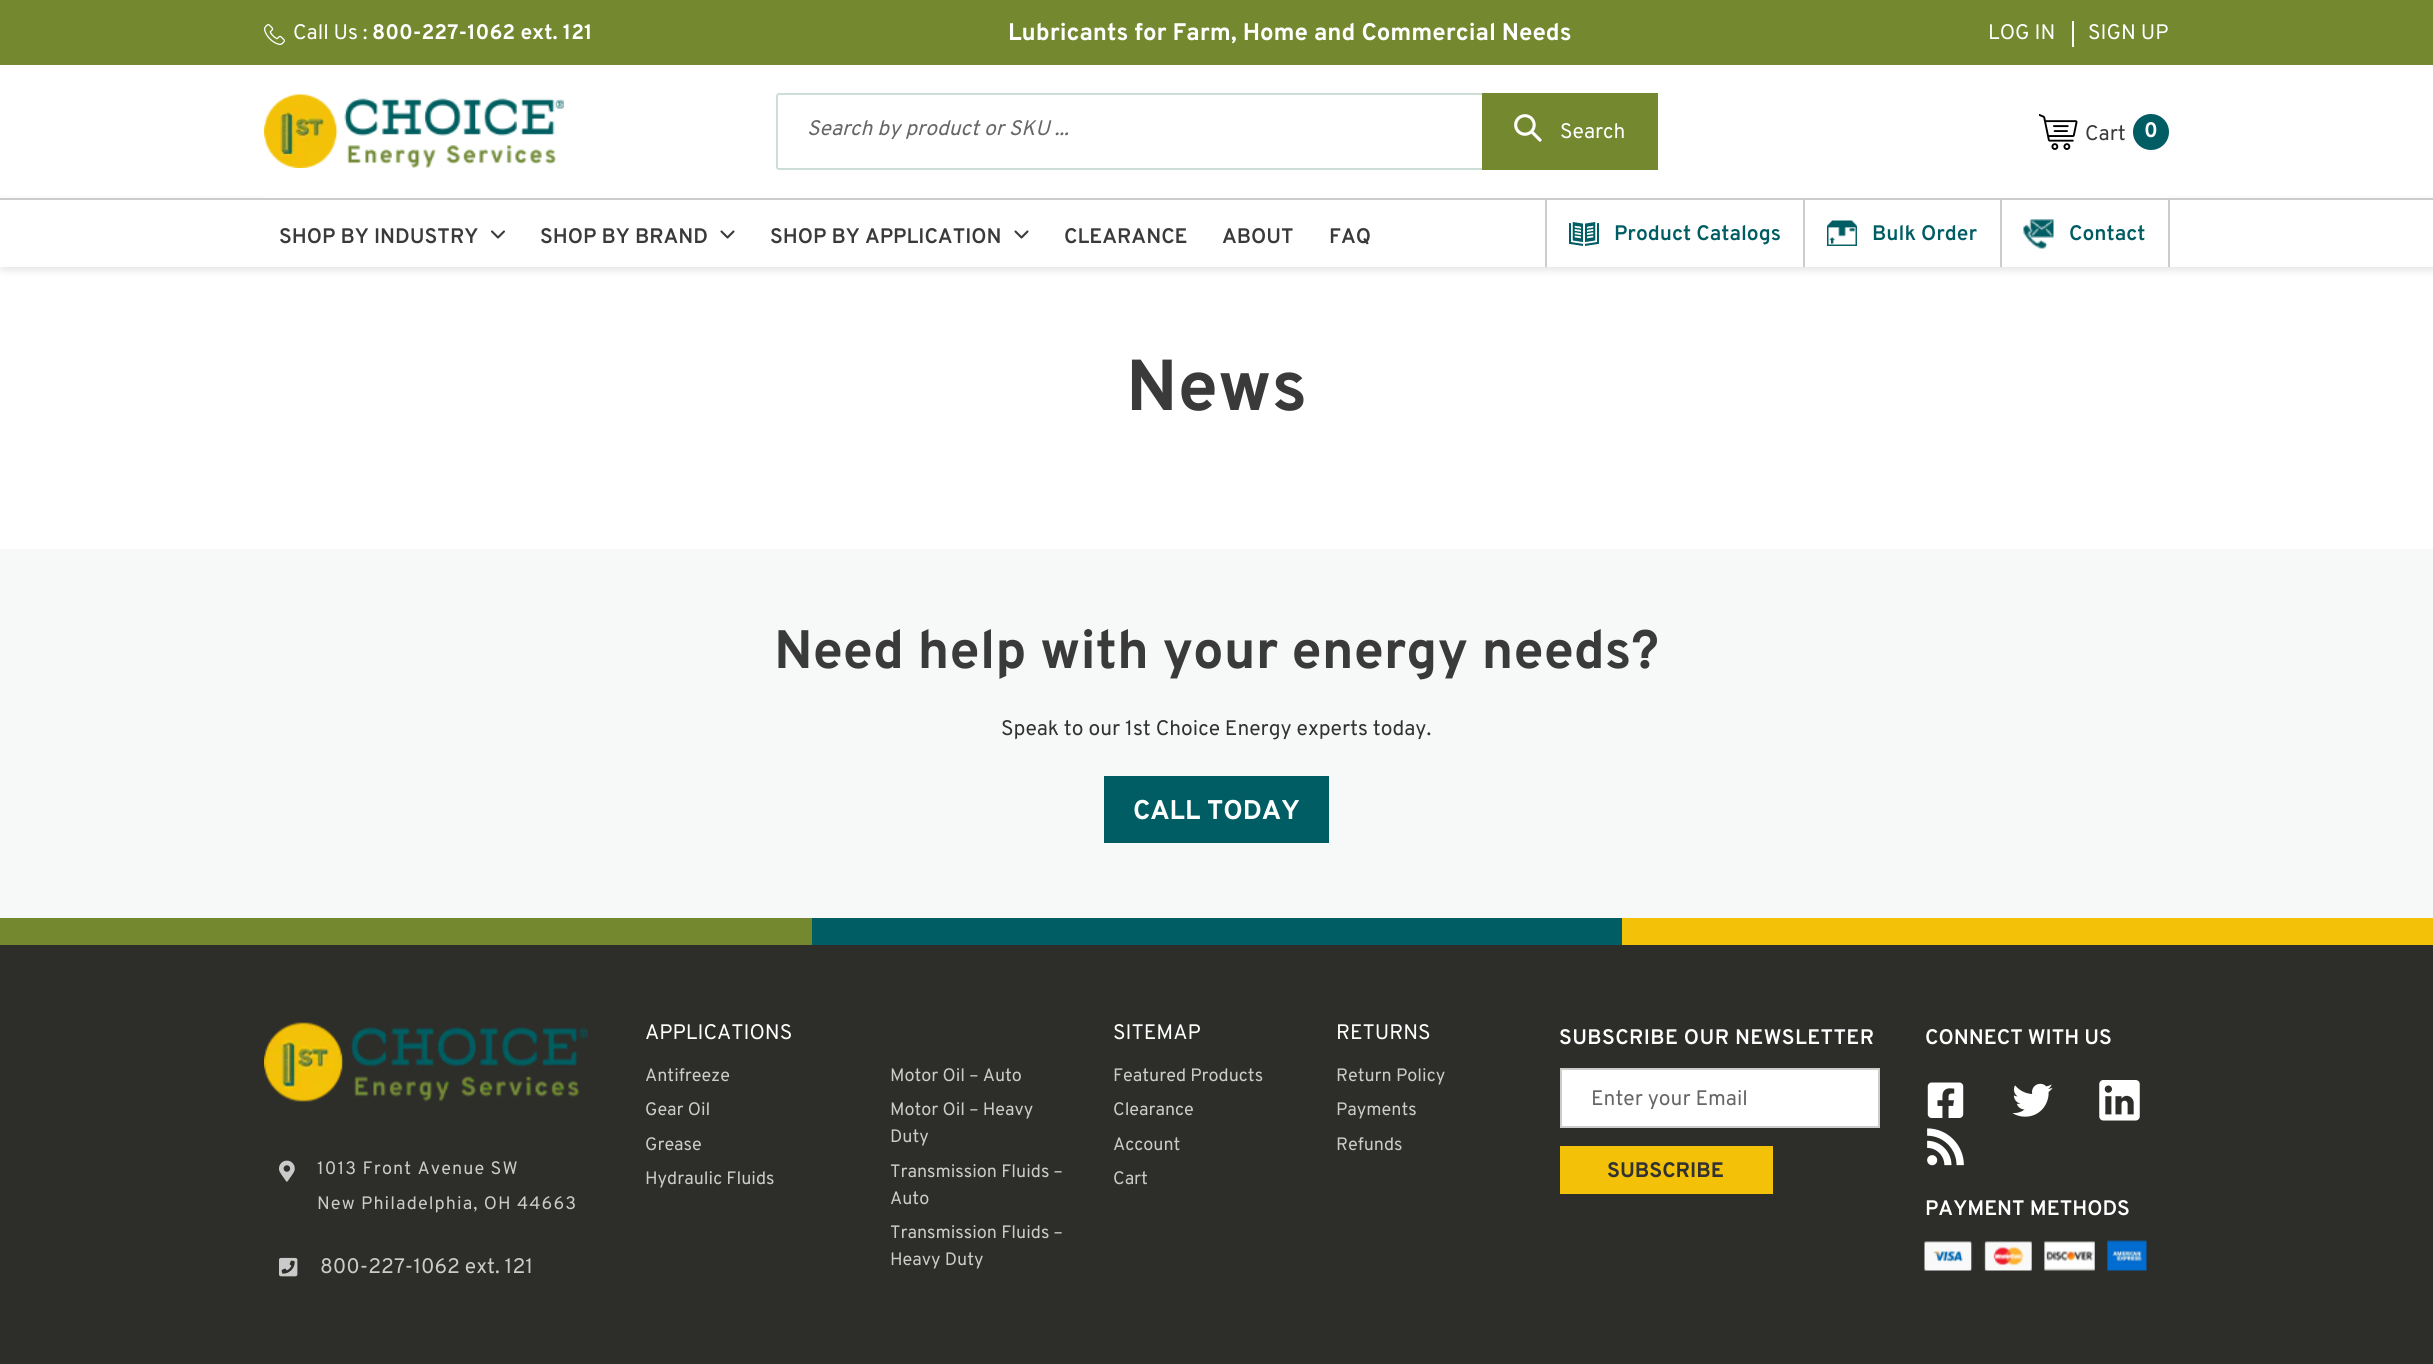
import math
import cairo


def write_spaced(ctx, x, y, s, letter, word):
	ctx.move_to(x, y)
	for ch in s:
		ctx.show_text(ch)
		ctx.rel_move_to(letter + word * (ch == ' '), 0)

def round_path(ctx, x, y, w, h, r):
	ctx.new_sub_path()
	for i, (u, v) in enumerate([(x + w - r, y + h - r), (x + r, y + h - r), (x + r, y + r), (x + w - r, y + r)]):
		ctx.arc(u, v, r, i * math.pi / 2, (i + 1) * math.pi / 2)
	ctx.close_path()

def blur_box(ctx, x, y, w, h, r, blur, alpha):
	ctx.push_group_with_content(cairo.CONTENT_ALPHA)
	ctx.set_operator(cairo.OPERATOR_SOURCE)
	for i in range(15, -16, -2):
		e = blur * i / 6
		if min(w, h) + 2 * e > 0:
			ctx.set_source_rgba(0, 0, 0, alpha * math.erfc((i - 1) / 8.5) / 2)
			round_path(ctx, x - e, y - e, w + 2 * e, h + 2 * e, max(0, min(r + e + blur * .6, min(w, h) / 2 + e)))
			ctx.fill()
	ctx.mask(ctx.pop_group())

def paste(ctx, path, x, y, w, h):
	ctx.save()
	ctx.set_source_surface(cairo.ImageSurface.create_from_png(path), x, y)
	ctx.rectangle(x, y, w, h)
	ctx.fill()
	ctx.restore()

def draw(ctx):
	ctx.set_source_rgb(1, 1, 1)
	ctx.paint()
	ctx.set_source_rgb(0.455, 0.533, 0.184)
	ctx.rectangle(0, 0, 2433, 65)
	ctx.fill()
	paste(ctx, 'media/1.png', 264, 24, 21, 21)
	ctx.select_font_face('Overpass')
	ctx.set_font_size(21)
	ctx.set_source_rgb(1, 1, 1)
	ctx.move_to(293, 39)
	ctx.show_text('Call Us :')
	ctx.select_font_face('Overpass', cairo.FONT_SLANT_NORMAL, cairo.FONT_WEIGHT_BOLD)
	ctx.move_to(372, 39)
	ctx.show_text('800-227-1062 ext. 121')
	ctx.set_font_size(24)
	ctx.move_to(1008, 40)
	ctx.show_text('Lubricants for Farm, Home and Commercial Needs')
	ctx.select_font_face('Overpass')
	ctx.set_font_size(21)
	ctx.move_to(1988, 39)
	ctx.show_text('LOG IN')
	ctx.move_to(2088, 39)
	ctx.show_text('SIGN UP')
	ctx.rectangle(2072, 21, 2, 26)
	ctx.fill()
	ctx.save()
	ctx.set_fill_rule(cairo.FILL_RULE_EVEN_ODD)
	ctx.new_path()
	ctx.move_to(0, 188)
	ctx.line_to(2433, 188)
	ctx.line_to(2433, 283)
	ctx.line_to(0, 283)
	ctx.close_path()
	ctx.move_to(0, 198)
	ctx.line_to(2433, 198)
	ctx.line_to(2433, 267)
	ctx.line_to(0, 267)
	ctx.close_path()
	ctx.clip()
	ctx.set_source_rgb(0, 0, 0)
	blur_box(ctx, 2, 201, 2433, 69, 0, 4, 0.11)
	ctx.restore()
	ctx.rectangle(264, 196, 1905, 2)
	ctx.fill()
	paste(ctx, 'media/2.png', 264, 94, 300, 74)
	round_path(ctx, 777, 94, 880, 75, 2)
	ctx.set_source_rgb(0.804, 0.871, 0.839)
	ctx.stroke()
	ctx.select_font_face('Overpass', cairo.FONT_SLANT_ITALIC)
	ctx.set_source_rgb(0.4, 0.4, 0.4)
	ctx.move_to(807, 135)
	ctx.show_text('Search by product or SKU ...')
	ctx.set_source_rgb(0.455, 0.533, 0.184)
	ctx.rectangle(1482, 93, 176, 77)
	ctx.fill()
	paste(ctx, 'media/3.png', 1514, 114, 28, 28)
	ctx.select_font_face('Overpass')
	ctx.set_source_rgb(1, 1, 1)
	ctx.move_to(1560, 138)
	ctx.show_text('Search')
	paste(ctx, 'media/4.png', 2039, 114, 39, 36)
	ctx.set_source_rgb(0.227, 0.227, 0.227)
	ctx.move_to(2085, 140)
	ctx.show_text('Cart')
	ctx.set_source_rgb(0, 0.365, 0.388)
	ctx.new_path()
	ctx.arc(2151, 132, 18, 0, 2 * math.pi)
	ctx.fill()
	ctx.select_font_face('Overpass', cairo.FONT_SLANT_NORMAL, cairo.FONT_WEIGHT_BOLD)
	ctx.set_source_rgb(1, 1, 1)
	ctx.move_to(2144, 137)
	ctx.show_text('0')
	ctx.set_source_rgb(0.8, 0.8, 0.8)
	ctx.rectangle(0, 198, 2433, 2)
	ctx.fill()
	ctx.select_font_face('Overpass SemiBold')
	ctx.set_source_rgb(0.227, 0.227, 0.227)
	ctx.move_to(279, 243)
	ctx.show_text('SHOP BY INDUSTRY')
	paste(ctx, 'media/5.png', 491, 230, 14, 9)
	ctx.move_to(540, 243)
	ctx.show_text('SHOP BY BRAND')
	paste(ctx, 'media/6.png', 720, 230, 15, 9)
	ctx.move_to(770, 243)
	ctx.show_text('SHOP BY APPLICATION')
	paste(ctx, 'media/6.png', 1014, 230, 15, 9)
	for x, y, s in [
		(1064, 243, 'CLEARANCE'),
		(1222, 243, 'ABOUT'),
		(1329, 243, 'FAQ'),
	]:
		ctx.move_to(x, y)
		ctx.show_text(s)
	ctx.set_source_rgb(0.8, 0.8, 0.8)
	ctx.rectangle(1545, 200, 2, 67)
	ctx.fill()
	paste(ctx, 'media/7.png', 1569, 222, 30, 24)
	ctx.set_source_rgb(0, 0.365, 0.388)
	ctx.move_to(1614, 240)
	ctx.show_text('Product Catalogs')
	ctx.set_source_rgb(0.8, 0.8, 0.8)
	ctx.rectangle(1803, 200, 2, 67)
	ctx.fill()
	paste(ctx, 'media/8.png', 1827, 220, 30, 26)
	ctx.set_source_rgb(0, 0.365, 0.388)
	ctx.move_to(1872, 240)
	ctx.show_text('Bulk Order')
	ctx.set_source_rgb(0.8, 0.8, 0.8)
	ctx.rectangle(2168, 200, 2, 67)
	ctx.fill()
	ctx.rectangle(2000, 200, 2, 67)
	ctx.fill()
	paste(ctx, 'media/9.png', 2023, 219, 31, 30)
	ctx.set_source_rgb(0, 0.365, 0.388)
	ctx.move_to(2069, 240)
	ctx.show_text('Contact')
	ctx.select_font_face('Overpass', cairo.FONT_SLANT_NORMAL, cairo.FONT_WEIGHT_BOLD)
	ctx.set_font_size(72)
	ctx.set_source_rgb(0.227, 0.227, 0.227)
	ctx.move_to(1126, 410)
	ctx.show_text('News')
	ctx.set_source_rgb(0.961, 0.973, 0.969)
	ctx.rectangle(0, 549, 2433, 369)
	ctx.fill()
	ctx.set_font_size(54)
	ctx.set_source_rgb(0.227, 0.227, 0.227)
	ctx.move_to(774, 668)
	ctx.show_text('Need help with your energy needs?')
	ctx.select_font_face('Overpass')
	ctx.set_font_size(21)
	ctx.set_source_rgb(0.2, 0.196, 0.196)
	ctx.move_to(1001, 735)
	ctx.show_text('Speak to our 1st Choice Energy experts today.')
	ctx.set_source_rgb(0, 0.365, 0.388)
	ctx.rectangle(1104, 776, 225, 67)
	ctx.fill()
	ctx.select_font_face('Overpass', cairo.FONT_SLANT_NORMAL, cairo.FONT_WEIGHT_BOLD)
	ctx.set_font_size(27)
	ctx.set_source_rgb(1, 1, 1)
	ctx.move_to(1133, 819)
	ctx.show_text('CALL TODAY')
	ctx.set_source_rgb(0.455, 0.533, 0.184)
	ctx.rectangle(0, 918, 812, 27)
	ctx.fill()
	ctx.set_source_rgb(0, 0.365, 0.388)
	ctx.rectangle(812, 918, 810, 27)
	ctx.fill()
	ctx.set_source_rgb(0.953, 0.757, 0.031)
	ctx.rectangle(1622, 918, 811, 27)
	ctx.fill()
	ctx.set_source_rgb(0.176, 0.176, 0.165)
	ctx.rectangle(0, 945, 2433, 419)
	ctx.fill()
	paste(ctx, 'media/10.png', 264, 1022, 324, 80)
	paste(ctx, 'media/11.png', 279, 1160, 16, 22)
	ctx.select_font_face('Overpass')
	ctx.set_font_size(18)
	ctx.set_source_rgb(0.796, 0.796, 0.792)
	write_spaced(ctx, 317, 1174, '1013 Front Avenue SW', 1.1, 0)
	write_spaced(ctx, 317, 1209, 'New Philadelphia, OH 44663', 1.1, 0)
	paste(ctx, 'media/12.png', 279, 1257, 19, 20)
	ctx.set_font_size(21)
	ctx.move_to(320, 1273)
	ctx.show_text('800-227-1062 ext. 121')
	ctx.set_source_rgb(1, 1, 1)
	ctx.move_to(645, 1039)
	ctx.show_text('APPLICATIONS')
	ctx.set_font_size(18)
	ctx.set_source_rgb(0.796, 0.796, 0.792)
	for x, y, s in [
		(645, 1081, 'Antifreeze'),
		(645, 1115, 'Gear Oil'),
		(645, 1150, 'Grease'),
		(645, 1184, 'Hydraulic Fluids'),
		(890, 1081, 'Motor Oil – Auto'),
		(890, 1115, 'Motor Oil – Heavy'),
		(890, 1142, 'Duty'),
		(890, 1177, 'Transmission Fluids –'),
		(890, 1204, 'Auto'),
		(890, 1238, 'Transmission Fluids –'),
		(890, 1265, 'Heavy Duty'),
	]:
		ctx.move_to(x, y)
		ctx.show_text(s)
	ctx.set_font_size(21)
	ctx.set_source_rgb(1, 1, 1)
	ctx.move_to(1113, 1039)
	ctx.show_text('SITEMAP')
	ctx.set_font_size(18)
	ctx.set_source_rgb(0.796, 0.796, 0.792)
	for x, y, s in [
		(1113, 1081, 'Featured Products'),
		(1113, 1115, 'Clearance'),
		(1113, 1150, 'Account'),
		(1113, 1184, 'Cart'),
	]:
		ctx.move_to(x, y)
		ctx.show_text(s)
	ctx.set_font_size(21)
	ctx.set_source_rgb(1, 1, 1)
	ctx.move_to(1336, 1039)
	ctx.show_text('RETURNS')
	ctx.set_font_size(18)
	ctx.set_source_rgb(0.796, 0.796, 0.792)
	for x, y, s in [
		(1336, 1081, 'Return Policy'),
		(1336, 1115, 'Payments'),
		(1336, 1150, 'Refunds'),
	]:
		ctx.move_to(x, y)
		ctx.show_text(s)
	ctx.select_font_face('Overpass SemiBold')
	ctx.set_font_size(21)
	ctx.set_source_rgb(1, 1, 1)
	write_spaced(ctx, 1559, 1044, 'SUBSCRIBE OUR NEWSLETTER', 0.4, 0)
	ctx.rectangle(1561, 1069, 318, 58)
	ctx.fill_preserve()
	ctx.set_source_rgb(0.8, 0.8, 0.8)
	ctx.stroke()
	ctx.select_font_face('Overpass')
	ctx.set_source_rgb(0.4, 0.4, 0.4)
	ctx.move_to(1591, 1105)
	ctx.show_text('Enter your Email')
	ctx.set_source_rgb(0.953, 0.757, 0.031)
	ctx.rectangle(1560, 1146, 213, 48)
	ctx.fill()
	ctx.select_font_face('Overpass', cairo.FONT_SLANT_NORMAL, cairo.FONT_WEIGHT_BOLD)
	ctx.set_source_rgb(0.2, 0.196, 0.196)
	ctx.move_to(1607, 1177)
	ctx.show_text('SUBSCRIBE')
	ctx.select_font_face('Overpass SemiBold')
	ctx.set_source_rgb(1, 1, 1)
	ctx.move_to(1925, 1044)
	ctx.show_text('CONNECT WITH US')
	paste(ctx, 'media/13.png', 1927, 1082, 37, 36)
	paste(ctx, 'media/14.png', 2012, 1083, 41, 34)
	paste(ctx, 'media/15.png', 2099, 1080, 41, 41)
	paste(ctx, 'media/16.png', 1927, 1128, 37, 38)
	ctx.move_to(1925, 1215)
	ctx.show_text('PAYMENT METHODS')
	paste(ctx, 'media/17.png', 1924, 1240, 223, 31)


surface = cairo.ImageSurface(cairo.FORMAT_RGB24, 2433, 1364)
ctx = cairo.Context(surface)
options = cairo.FontOptions()
options.set_hint_metrics(cairo.HINT_METRICS_OFF)
options.set_hint_style(cairo.HINT_STYLE_NONE)
ctx.set_font_options(options)
ctx.set_miter_limit(4)
draw(ctx)
surface.write_to_png('image.png')
